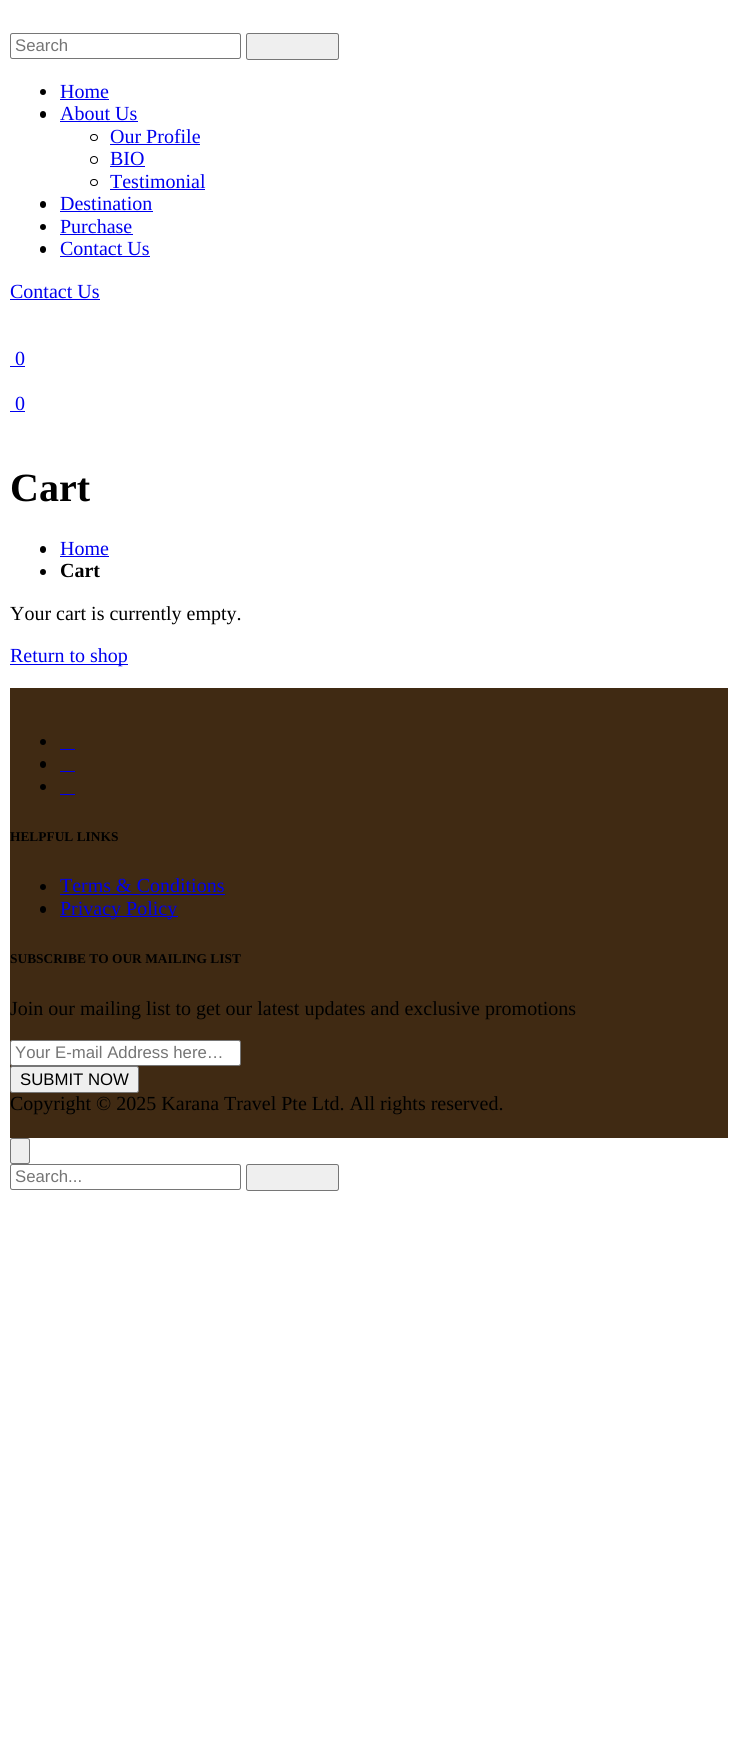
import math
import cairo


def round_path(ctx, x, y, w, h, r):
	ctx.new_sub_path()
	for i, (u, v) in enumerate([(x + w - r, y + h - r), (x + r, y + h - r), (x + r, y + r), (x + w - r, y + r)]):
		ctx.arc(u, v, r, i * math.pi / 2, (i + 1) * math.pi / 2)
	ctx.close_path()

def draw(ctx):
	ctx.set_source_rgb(1, 1, 1)
	ctx.paint()
	round_path(ctx, 10.5, 33.5, 230, 25, 2)
	ctx.set_source_rgb(0.463, 0.463, 0.463)
	ctx.set_line_width(1)
	ctx.stroke()
	ctx.select_font_face('Liberation Sans')
	ctx.set_font_size(16.75)
	ctx.set_source_rgb(0.459, 0.459, 0.459)
	ctx.move_to(15, 51)
	ctx.show_text('Search')
	ctx.set_source_rgb(0.937, 0.937, 0.937)
	round_path(ctx, 246.5, 33.5, 92, 26, 2)
	ctx.fill_preserve()
	ctx.set_source_rgb(0.463, 0.463, 0.463)
	ctx.stroke()
	ctx.set_source_rgb(0, 0, 0)
	ctx.arc(43, 92, 3, 0, 2 * math.pi)
	ctx.fill()
	ctx.select_font_face('Liberation Serif')
	ctx.set_font_size(20)
	ctx.set_source_rgb(0, 0, 0.933)
	ctx.move_to(60, 98)
	ctx.show_text('Home')
	ctx.rectangle(60, 99, 49, 1)
	ctx.fill()
	ctx.set_source_rgb(0, 0, 0)
	round_path(ctx, 40, 111, 6, 7, 3)
	ctx.fill()
	ctx.set_source_rgb(0, 0, 0.933)
	ctx.move_to(60, 120)
	ctx.show_text('About Us')
	ctx.rectangle(60, 121, 78, 1)
	ctx.fill()
	round_path(ctx, 90.5, 134.5, 7, 6, 3)
	ctx.set_source_rgb(0, 0, 0)
	ctx.stroke()
	ctx.set_source_rgb(0, 0, 0.933)
	ctx.move_to(110, 143)
	ctx.show_text('Our Profile')
	ctx.rectangle(110, 144, 90, 1)
	ctx.fill()
	ctx.arc(94, 160, 3.5, 0, 2 * math.pi)
	ctx.set_source_rgb(0, 0, 0)
	ctx.stroke()
	ctx.set_source_rgb(0, 0, 0.933)
	ctx.move_to(110, 165)
	ctx.show_text('BIO')
	ctx.rectangle(110, 166, 35, 1)
	ctx.fill()
	round_path(ctx, 90.5, 179.5, 7, 6, 3)
	ctx.set_source_rgb(0, 0, 0)
	ctx.stroke()
	ctx.set_source_rgb(0, 0, 0.933)
	ctx.move_to(110, 188)
	ctx.show_text('Testimonial')
	ctx.rectangle(110, 189, 95, 1)
	ctx.fill()
	ctx.set_source_rgb(0, 0, 0)
	round_path(ctx, 40, 201, 6, 7, 3)
	ctx.fill()
	ctx.set_source_rgb(0, 0, 0.933)
	ctx.move_to(60, 210)
	ctx.show_text('Destination')
	ctx.rectangle(60, 211, 93, 1)
	ctx.fill()
	ctx.set_source_rgb(0, 0, 0)
	ctx.arc(43, 227, 3, 0, 2 * math.pi)
	ctx.fill()
	ctx.set_source_rgb(0, 0, 0.933)
	ctx.move_to(60, 233)
	ctx.show_text('Purchase')
	ctx.rectangle(60, 234, 73, 1)
	ctx.fill()
	ctx.set_source_rgb(0, 0, 0)
	round_path(ctx, 40, 246, 6, 7, 3)
	ctx.fill()
	ctx.set_source_rgb(0, 0, 0.933)
	ctx.move_to(60, 255)
	ctx.show_text('Contact Us')
	ctx.rectangle(60, 256, 90, 1)
	ctx.fill()
	ctx.move_to(10, 298)
	ctx.show_text('Contact Us')
	ctx.rectangle(10, 299, 90, 1)
	ctx.fill()
	ctx.move_to(15, 365)
	ctx.show_text('0')
	ctx.rectangle(10, 366, 15, 1)
	ctx.fill()
	ctx.move_to(15, 410)
	ctx.show_text('0')
	ctx.rectangle(10, 411, 15, 1)
	ctx.fill()
	ctx.select_font_face('Liberation Serif', cairo.FONT_SLANT_NORMAL, cairo.FONT_WEIGHT_BOLD)
	ctx.set_font_size(40)
	ctx.set_source_rgb(0, 0, 0)
	ctx.move_to(10, 501)
	ctx.show_text('Cart')
	round_path(ctx, 40, 546, 6, 7, 3)
	ctx.fill()
	ctx.select_font_face('Liberation Serif')
	ctx.set_font_size(20)
	ctx.set_source_rgb(0, 0, 0.933)
	ctx.move_to(60, 555)
	ctx.show_text('Home')
	ctx.rectangle(60, 556, 49, 1)
	ctx.fill()
	ctx.set_source_rgb(0, 0, 0)
	ctx.arc(43, 572, 3, 0, 2 * math.pi)
	ctx.fill()
	ctx.select_font_face('Liberation Serif', cairo.FONT_SLANT_NORMAL, cairo.FONT_WEIGHT_BOLD)
	ctx.move_to(60, 577)
	ctx.show_text('Cart')
	ctx.select_font_face('Liberation Serif')
	ctx.move_to(10, 620)
	ctx.show_text('Your cart is currently empty.')
	ctx.set_source_rgb(0, 0, 0.933)
	ctx.rectangle(10, 664, 118, 1)
	ctx.fill()
	ctx.move_to(10, 662)
	ctx.show_text('Return to shop')
	ctx.set_source_rgb(0.251, 0.165, 0.078)
	ctx.rectangle(10, 688, 718, 450)
	ctx.fill()
	ctx.set_source_rgb(0, 0, 0)
	ctx.arc(43, 742, 3, 0, 2 * math.pi)
	ctx.fill()
	ctx.set_source_rgb(0, 0, 0.933)
	ctx.rectangle(60, 749, 15, 1)
	ctx.fill()
	ctx.set_source_rgb(0, 0, 0)
	round_path(ctx, 40, 761, 6, 7, 3)
	ctx.fill()
	ctx.set_source_rgb(0, 0, 0.933)
	ctx.rectangle(60, 771, 15, 1)
	ctx.fill()
	ctx.set_source_rgb(0, 0, 0)
	ctx.arc(43, 787, 3, 0, 2 * math.pi)
	ctx.fill()
	ctx.set_source_rgb(0, 0, 0.933)
	ctx.rectangle(60, 794, 15, 1)
	ctx.fill()
	ctx.select_font_face('Liberation Serif', cairo.FONT_SLANT_NORMAL, cairo.FONT_WEIGHT_BOLD)
	ctx.set_font_size(13.4)
	ctx.set_source_rgb(0, 0, 0)
	ctx.move_to(10, 841)
	ctx.show_text('HELPFUL LINKS')
	ctx.new_path()
	ctx.arc(43, 887, 3, 0, 2 * math.pi)
	ctx.fill()
	ctx.select_font_face('Liberation Serif')
	ctx.set_font_size(20)
	ctx.set_source_rgb(0, 0, 0.933)
	ctx.move_to(60, 892)
	ctx.show_text('Terms & Conditions')
	ctx.rectangle(60, 894, 165, 1)
	ctx.fill()
	ctx.set_source_rgb(0, 0, 0)
	round_path(ctx, 40, 906, 6, 7, 3)
	ctx.fill()
	ctx.set_source_rgb(0, 0, 0.933)
	ctx.rectangle(60, 916, 118, 1)
	ctx.fill()
	ctx.move_to(60, 915)
	ctx.show_text('Privacy Policy')
	ctx.select_font_face('Liberation Serif', cairo.FONT_SLANT_NORMAL, cairo.FONT_WEIGHT_BOLD)
	ctx.set_font_size(13.4)
	ctx.set_source_rgb(0, 0, 0)
	ctx.move_to(10, 963)
	ctx.show_text('SUBSCRIBE TO OUR MAILING LIST')
	ctx.select_font_face('Liberation Serif')
	ctx.set_font_size(20)
	ctx.move_to(10, 1015)
	ctx.show_text('Join our mailing list to get our latest updates and exclusive promotions')
	ctx.set_source_rgb(1, 1, 1)
	round_path(ctx, 10.5, 1040.5, 230, 25, 2)
	ctx.fill_preserve()
	ctx.set_source_rgb(0.463, 0.463, 0.463)
	ctx.stroke()
	ctx.select_font_face('Liberation Sans')
	ctx.set_font_size(16.75)
	ctx.set_source_rgb(0.459, 0.459, 0.459)
	ctx.move_to(15, 1058)
	ctx.show_text('Your E-mail Address here…')
	ctx.set_source_rgb(0.937, 0.937, 0.937)
	round_path(ctx, 10.5, 1066.5, 128, 26, 2)
	ctx.fill_preserve()
	ctx.set_source_rgb(0.463, 0.463, 0.463)
	ctx.stroke()
	ctx.set_source_rgb(0, 0, 0)
	ctx.move_to(20, 1085)
	ctx.show_text('SUBMIT NOW')
	ctx.select_font_face('Liberation Serif')
	ctx.set_font_size(20)
	ctx.move_to(10, 1110)
	ctx.show_text('Copyright © 2025 Karana Travel Pte Ltd. All rights reserved.')
	ctx.set_source_rgb(0.937, 0.937, 0.937)
	round_path(ctx, 10.5, 1138.5, 19, 25, 2)
	ctx.fill_preserve()
	ctx.set_source_rgb(0.463, 0.463, 0.463)
	ctx.stroke()
	round_path(ctx, 10.5, 1164.5, 230, 25, 2)
	ctx.stroke()
	ctx.select_font_face('Liberation Sans')
	ctx.set_font_size(16.75)
	ctx.set_source_rgb(0.459, 0.459, 0.459)
	ctx.move_to(15, 1182)
	ctx.show_text('Search...')
	ctx.set_source_rgb(0.937, 0.937, 0.937)
	round_path(ctx, 246.5, 1164.5, 92, 26, 2)
	ctx.fill_preserve()
	ctx.set_source_rgb(0.463, 0.463, 0.463)
	ctx.stroke()


surface = cairo.ImageSurface(cairo.FORMAT_RGB24, 737, 1752)
ctx = cairo.Context(surface)
options = cairo.FontOptions()
options.set_hint_metrics(cairo.HINT_METRICS_OFF)
options.set_hint_style(cairo.HINT_STYLE_NONE)
ctx.set_font_options(options)
ctx.set_miter_limit(4)
draw(ctx)
surface.write_to_png('image.png')
